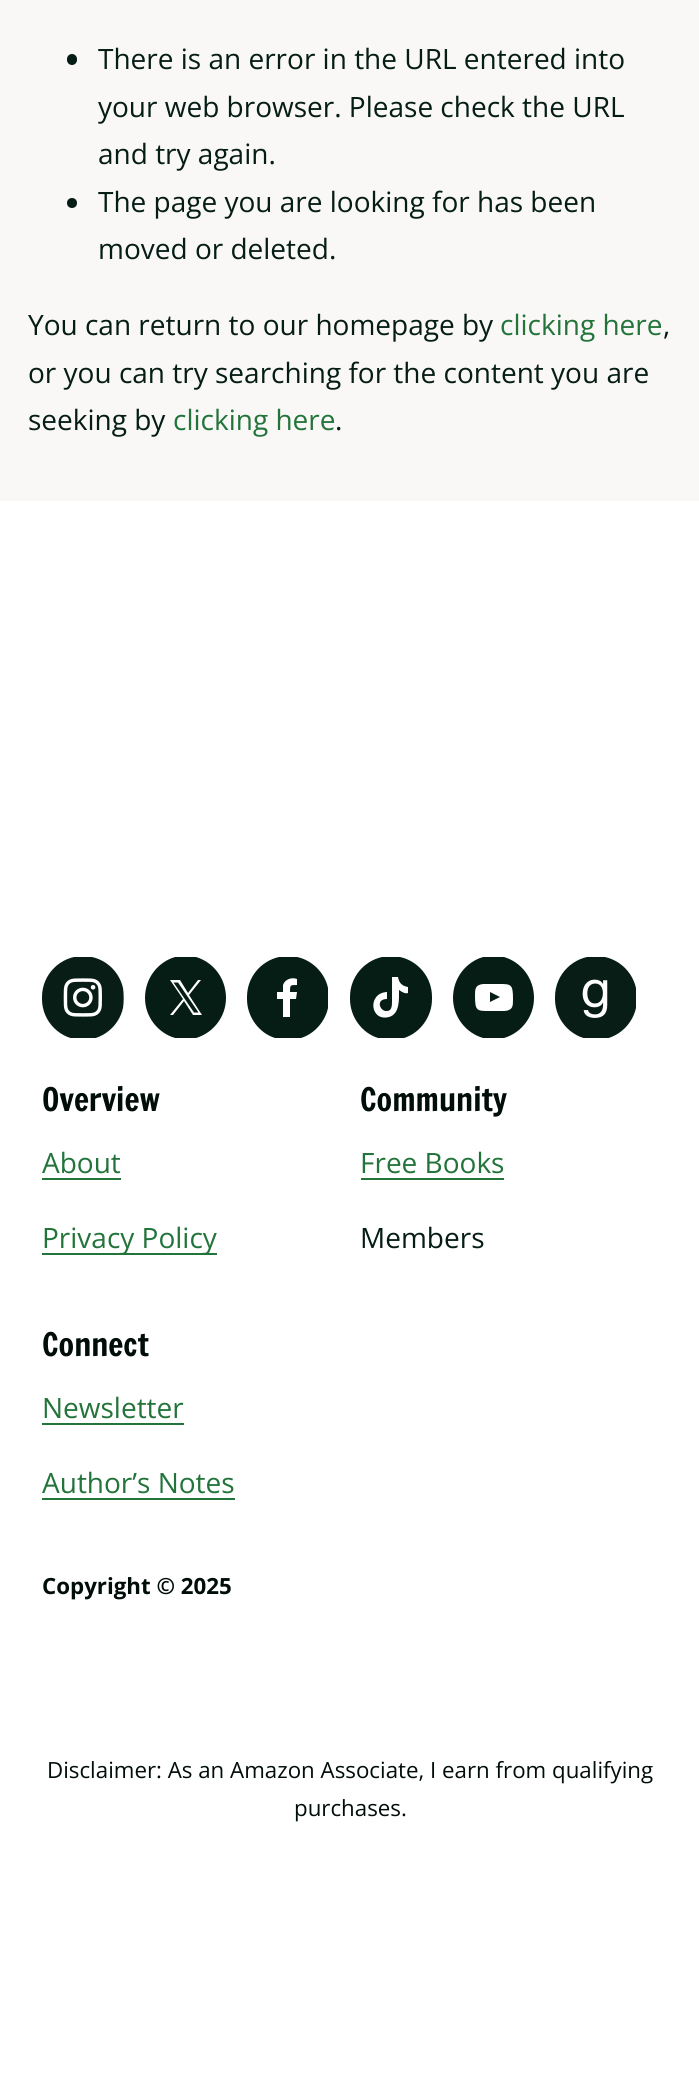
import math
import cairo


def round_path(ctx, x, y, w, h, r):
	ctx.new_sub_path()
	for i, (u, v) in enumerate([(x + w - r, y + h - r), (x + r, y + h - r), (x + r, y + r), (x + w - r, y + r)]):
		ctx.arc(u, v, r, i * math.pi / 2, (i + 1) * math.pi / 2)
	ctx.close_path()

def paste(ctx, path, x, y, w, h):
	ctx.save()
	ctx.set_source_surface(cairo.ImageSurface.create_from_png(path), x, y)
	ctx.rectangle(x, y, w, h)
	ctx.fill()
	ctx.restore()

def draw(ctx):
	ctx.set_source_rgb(0.973, 0.969, 0.965)
	ctx.paint()
	ctx.set_source_rgb(0.027, 0.114, 0.086)
	round_path(ctx, 67, 54, 10, 11, 5)
	ctx.fill()
	ctx.select_font_face('Open Sans')
	ctx.set_font_size(28)
	for x, y, s in [
		(98, 69, 'There is an error in the URL entered into'),
		(98, 117, 'your web browser. Please check the URL'),
		(98, 164, 'and try again.'),
	]:
		ctx.move_to(x, y)
		ctx.show_text(s)
	ctx.new_path()
	ctx.arc(72, 203, 5, 0, 2 * math.pi)
	ctx.fill()
	for x, y, s in [
		(98, 212, 'The page you are looking for has been'),
		(98, 259, 'moved or deleted.'),
		(28, 335, 'You can return to our homepage by'),
	]:
		ctx.move_to(x, y)
		ctx.show_text(s)
	ctx.set_source_rgb(0.137, 0.455, 0.231)
	ctx.move_to(500, 335)
	ctx.show_text('clicking here')
	ctx.set_source_rgb(0.027, 0.114, 0.086)
	for x, y, s in [
		(663, 335, ','),
		(28, 383, 'or you can try searching for the content you are'),
		(28, 430, 'seeking by'),
	]:
		ctx.move_to(x, y)
		ctx.show_text(s)
	ctx.set_source_rgb(0.137, 0.455, 0.231)
	ctx.move_to(173, 430)
	ctx.show_text('clicking here')
	ctx.set_source_rgb(0.027, 0.114, 0.086)
	ctx.move_to(335, 430)
	ctx.show_text('.')
	ctx.set_source_rgb(1, 1, 1)
	ctx.rectangle(0, 501, 699, 1599)
	ctx.fill()
	paste(ctx, 'media/1.png', 42, 957, 82, 81)
	ctx.set_source_rgb(0.027, 0.114, 0.086)
	ctx.new_path()
	ctx.move_to(194, 1012.5)
	ctx.line_to(198.5, 1012.5)
	ctx.line_to(178, 982.5)
	ctx.line_to(173.5, 982.5)
	ctx.close_path()
	ctx.fill()
	ctx.set_fill_rule(cairo.FILL_RULE_EVEN_ODD)
	ctx.new_path()
	ctx.move_to(175, 1038)
	ctx.curve_to(158, 1033, 145, 1017, 145, 998)
	ctx.curve_to(145, 978, 158, 962, 175, 957)
	ctx.line_to(196, 957)
	ctx.curve_to(213, 962, 226, 978, 226, 998)
	ctx.curve_to(226, 1017, 213, 1033, 196, 1038)
	ctx.close_path()
	ctx.move_to(201, 980)
	ctx.line_to(198, 980)
	ctx.line_to(188, 993)
	ctx.line_to(180, 980)
	ctx.line_to(170, 980)
	ctx.line_to(183, 999)
	ctx.line_to(170, 1015)
	ctx.line_to(173, 1015)
	ctx.line_to(184, 1001)
	ctx.line_to(193, 1015)
	ctx.line_to(202, 1015)
	ctx.line_to(189, 995)
	ctx.close_path()
	ctx.fill()
	ctx.new_path()
	ctx.move_to(247, 997)
	ctx.line_to(247, 999)
	ctx.curve_to(247, 1017, 259, 1033, 275, 1038)
	ctx.line_to(301, 1038)
	ctx.curve_to(314, 1034, 325, 1022, 328, 1008)
	ctx.line_to(328, 988)
	ctx.curve_to(325, 973, 312, 960, 297, 957)
	ctx.line_to(279, 957)
	ctx.curve_to(261, 961, 247, 977, 247, 997)
	ctx.close_path()
	ctx.move_to(297, 985)
	ctx.line_to(297, 979)
	ctx.curve_to(292, 977, 285, 979, 283, 985)
	ctx.line_to(283, 992)
	ctx.line_to(277, 992)
	ctx.line_to(277, 999)
	ctx.line_to(283, 999)
	ctx.line_to(283, 1017)
	ctx.line_to(290, 1017)
	ctx.line_to(290, 999)
	ctx.line_to(296, 999)
	ctx.line_to(297, 992)
	ctx.line_to(290, 992)
	ctx.curve_to(290, 985, 290, 985, 297, 985)
	ctx.close_path()
	ctx.fill()
	ctx.new_path()
	ctx.move_to(350, 997)
	ctx.line_to(350, 999)
	ctx.curve_to(350, 1017, 362, 1033, 378, 1038)
	ctx.line_to(404, 1038)
	ctx.curve_to(420, 1033, 432, 1017, 432, 999)
	ctx.line_to(432, 997)
	ctx.curve_to(432, 977, 418, 961, 400, 957)
	ctx.line_to(382, 957)
	ctx.curve_to(364, 961, 350, 977, 350, 997)
	ctx.close_path()
	ctx.move_to(408, 987)
	ctx.line_to(408, 993)
	ctx.curve_to(405, 994, 402, 992, 399, 990)
	ctx.curve_to(399, 999, 400, 1014, 389, 1017)
	ctx.curve_to(370, 1022, 367, 993, 387, 992)
	ctx.line_to(387, 999)
	ctx.curve_to(375, 999, 380, 1012, 387, 1011)
	ctx.curve_to(392, 1011, 392, 1005, 392, 1001)
	ctx.line_to(392, 977)
	ctx.line_to(398, 977)
	ctx.curve_to(399, 983, 402, 986, 408, 987)
	ctx.close_path()
	ctx.fill()
	ctx.new_path()
	ctx.move_to(483, 1038)
	ctx.curve_to(466, 1033, 453, 1017, 453, 998)
	ctx.curve_to(453, 978, 466, 962, 483, 957)
	ctx.line_to(504, 957)
	ctx.curve_to(521, 962, 534, 978, 534, 998)
	ctx.curve_to(534, 1017, 521, 1033, 504, 1038)
	ctx.close_path()
	ctx.move_to(513, 999)
	ctx.curve_to(513, 984, 511, 984, 499, 984)
	ctx.line_to(483, 984)
	ctx.curve_to(475, 985, 475, 989, 475, 996)
	ctx.curve_to(475, 1011, 477, 1011, 489, 1011)
	ctx.line_to(505, 1011)
	ctx.curve_to(513, 1010, 513, 1006, 513, 999)
	ctx.close_path()
	ctx.move_to(490, 1002)
	ctx.line_to(490, 992)
	ctx.line_to(500, 997)
	ctx.close_path()
	ctx.fill()
	paste(ctx, 'media/2.png', 555, 957, 81, 81)
	ctx.select_font_face('Francois One')
	ctx.set_font_size(31.75)
	ctx.set_source_rgb(0.004, 0.051, 0.035)
	ctx.move_to(42, 1111)
	ctx.show_text('Overview')
	ctx.move_to(360, 1111)
	ctx.show_text('Community')
	ctx.select_font_face('Open Sans')
	ctx.set_font_size(28)
	ctx.set_source_rgb(0.137, 0.455, 0.231)
	ctx.move_to(42, 1173)
	ctx.show_text('About')
	ctx.rectangle(42, 1178, 79, 2)
	ctx.fill()
	ctx.rectangle(42, 1253, 175, 2)
	ctx.fill()
	ctx.move_to(42, 1248)
	ctx.show_text('Privacy Policy')
	ctx.move_to(360, 1173)
	ctx.show_text('Free Books')
	ctx.rectangle(361, 1178, 143, 2)
	ctx.fill()
	ctx.set_source_rgb(0.027, 0.114, 0.086)
	ctx.move_to(360, 1248)
	ctx.show_text('Members')
	ctx.select_font_face('Francois One')
	ctx.set_font_size(31.75)
	ctx.set_source_rgb(0.004, 0.051, 0.035)
	ctx.move_to(42, 1356)
	ctx.show_text('Connect')
	ctx.select_font_face('Open Sans')
	ctx.set_font_size(28)
	ctx.set_source_rgb(0.137, 0.455, 0.231)
	ctx.move_to(42, 1418)
	ctx.show_text('Newsletter')
	ctx.rectangle(42, 1423, 142, 2)
	ctx.fill()
	ctx.move_to(42, 1493)
	ctx.show_text('Author’s Notes')
	ctx.rectangle(42, 1498, 193, 2)
	ctx.fill()
	ctx.select_font_face('Open Sans', cairo.FONT_SLANT_NORMAL, cairo.FONT_WEIGHT_BOLD)
	ctx.set_font_size(22.3)
	ctx.set_source_rgb(0.004, 0.051, 0.035)
	ctx.move_to(42, 1594)
	ctx.show_text('Copyright © 2025')
	ctx.select_font_face('Open Sans')
	ctx.move_to(47, 1778)
	ctx.show_text('Disclaimer: As an Amazon Associate, I earn from qualifying')
	ctx.move_to(294, 1816)
	ctx.show_text('purchases.')


surface = cairo.ImageSurface(cairo.FORMAT_RGB24, 699, 2100)
ctx = cairo.Context(surface)
options = cairo.FontOptions()
options.set_hint_metrics(cairo.HINT_METRICS_OFF)
options.set_hint_style(cairo.HINT_STYLE_NONE)
ctx.set_font_options(options)
ctx.set_miter_limit(4)
draw(ctx)
surface.write_to_png('image.png')
